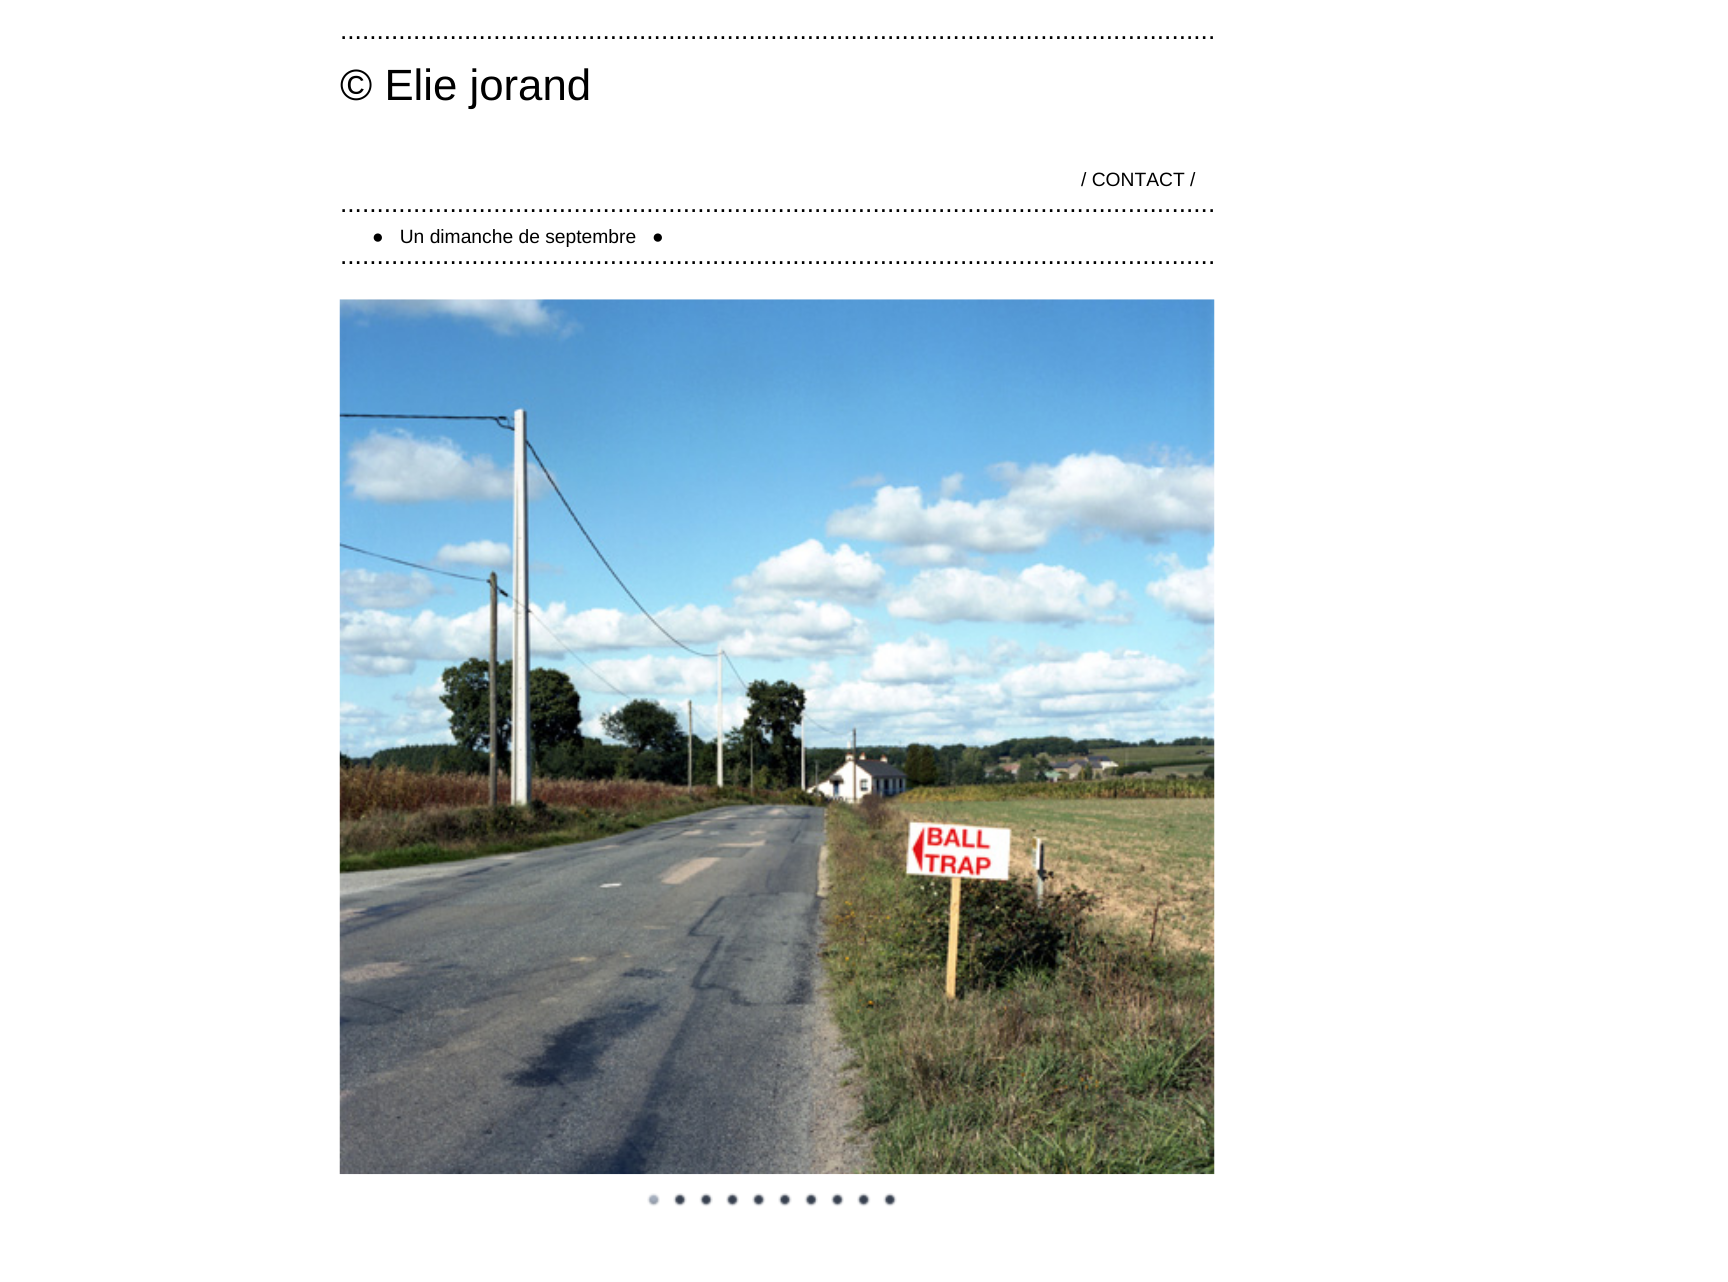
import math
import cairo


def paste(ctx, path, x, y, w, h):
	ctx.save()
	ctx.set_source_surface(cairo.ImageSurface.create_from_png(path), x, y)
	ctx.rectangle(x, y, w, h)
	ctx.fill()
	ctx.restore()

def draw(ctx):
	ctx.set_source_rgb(1, 1, 1)
	ctx.paint()
	ctx.select_font_face('Liberation Sans')
	ctx.set_font_size(26.25)
	ctx.set_source_rgb(0, 0, 0)
	ctx.move_to(340, 39)
	ctx.show_text('........................................................................................................................')
	ctx.set_font_size(43.75)
	ctx.move_to(340, 100)
	ctx.show_text('© Elie jorand')
	ctx.set_font_size(19.25)
	ctx.move_to(1081, 186)
	ctx.show_text('/ CONTACT /')
	ctx.set_font_size(26.25)
	ctx.move_to(340, 212)
	ctx.show_text('........................................................................................................................')
	ctx.set_font_size(19.25)
	ctx.move_to(372, 243)
	ctx.show_text('●   Un dimanche de septembre')
	ctx.move_to(652, 243)
	ctx.show_text('●')
	ctx.set_font_size(26.25)
	ctx.move_to(340, 264)
	ctx.show_text('........................................................................................................................')
	paste(ctx, 'media/1.png', 339, 299, 876, 876)
	paste(ctx, 'media/2.png', 647, 1193, 13, 14)
	paste(ctx, 'media/3.png', 673, 1193, 14, 14)
	paste(ctx, 'media/4.png', 699, 1193, 14, 14)
	paste(ctx, 'media/5.png', 726, 1193, 13, 14)
	paste(ctx, 'media/6.png', 752, 1193, 14, 14)
	paste(ctx, 'media/7.png', 778, 1193, 14, 14)
	paste(ctx, 'media/8.png', 804, 1193, 14, 14)
	paste(ctx, 'media/9.png', 831, 1193, 13, 14)
	paste(ctx, 'media/6.png', 857, 1193, 14, 14)
	paste(ctx, 'media/10.png', 883, 1193, 14, 14)


surface = cairo.ImageSurface(cairo.FORMAT_RGB24, 1728, 1282)
ctx = cairo.Context(surface)
options = cairo.FontOptions()
options.set_hint_metrics(cairo.HINT_METRICS_OFF)
options.set_hint_style(cairo.HINT_STYLE_NONE)
ctx.set_font_options(options)
ctx.set_miter_limit(4)
draw(ctx)
surface.write_to_png('image.png')
